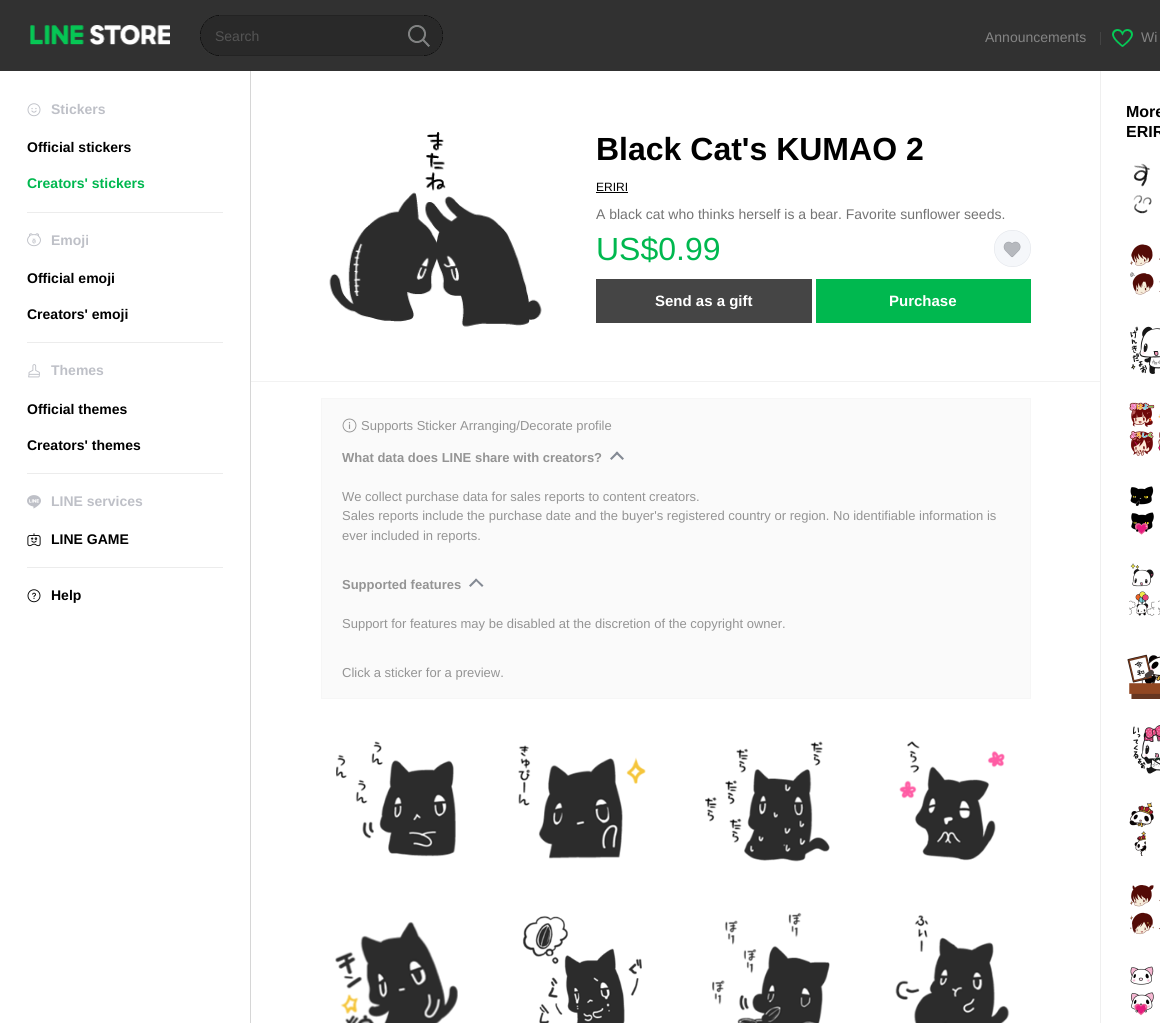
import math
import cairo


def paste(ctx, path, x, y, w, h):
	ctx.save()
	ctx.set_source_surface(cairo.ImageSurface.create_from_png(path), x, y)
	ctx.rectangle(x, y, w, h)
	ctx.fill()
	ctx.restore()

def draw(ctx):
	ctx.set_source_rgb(1, 1, 1)
	ctx.paint()
	ctx.set_source_rgb(0.192, 0.192, 0.192)
	ctx.rectangle(0, 0, 1160, 71)
	ctx.fill()
	paste(ctx, 'media/1.png', 30, 25, 140, 20)
	paste(ctx, 'media/2.png', 200, 15, 243, 41)
	ctx.select_font_face('Liberation Sans')
	ctx.set_font_size(14)
	ctx.set_source_rgb(0.329, 0.329, 0.329)
	ctx.move_to(215, 41)
	ctx.show_text('Search')
	paste(ctx, 'media/3.png', 408, 25, 22, 22)
	ctx.set_source_rgb(0.518, 0.518, 0.518)
	ctx.move_to(985, 42)
	ctx.show_text('Announcements')
	ctx.set_source_rgb(0.267, 0.267, 0.267)
	ctx.rectangle(1100, 32, 1, 13)
	ctx.fill()
	paste(ctx, 'media/4.png', 1112, 29, 21, 18)
	ctx.set_source_rgb(0.518, 0.518, 0.518)
	ctx.move_to(1141, 42)
	ctx.show_text('Wi')
	paste(ctx, 'media/5.png', 27, 103, 14, 14)
	ctx.select_font_face('Liberation Sans', cairo.FONT_SLANT_NORMAL, cairo.FONT_WEIGHT_BOLD)
	ctx.set_source_rgb(0.745, 0.753, 0.78)
	ctx.move_to(51, 114)
	ctx.show_text('Stickers')
	ctx.set_source_rgb(0, 0, 0)
	ctx.move_to(27, 152)
	ctx.show_text('Official stickers')
	ctx.set_source_rgb(0, 0.722, 0.31)
	ctx.move_to(27, 188)
	ctx.show_text('Creators\' stickers')
	ctx.set_source_rgb(0.922, 0.922, 0.922)
	ctx.rectangle(27, 212, 196, 1)
	ctx.fill()
	paste(ctx, 'media/6.png', 27, 233, 14, 14)
	ctx.set_source_rgb(0.745, 0.753, 0.78)
	ctx.move_to(51, 245)
	ctx.show_text('Emoji')
	ctx.set_source_rgb(0, 0, 0)
	ctx.move_to(27, 283)
	ctx.show_text('Official emoji')
	ctx.move_to(27, 319)
	ctx.show_text('Creators\' emoji')
	ctx.set_source_rgb(0.922, 0.922, 0.922)
	ctx.rectangle(27, 342, 196, 1)
	ctx.fill()
	paste(ctx, 'media/7.png', 28, 364, 12, 14)
	ctx.set_source_rgb(0.745, 0.753, 0.78)
	ctx.move_to(51, 375)
	ctx.show_text('Themes')
	ctx.set_source_rgb(0, 0, 0)
	ctx.move_to(27, 414)
	ctx.show_text('Official themes')
	ctx.move_to(27, 450)
	ctx.show_text('Creators\' themes')
	ctx.set_source_rgb(0.922, 0.922, 0.922)
	ctx.rectangle(27, 473, 196, 1)
	ctx.fill()
	paste(ctx, 'media/8.png', 27, 495, 14, 14)
	ctx.set_source_rgb(0.745, 0.753, 0.78)
	ctx.move_to(51, 506)
	ctx.show_text('LINE services')
	paste(ctx, 'media/9.png', 27, 533, 14, 14)
	ctx.set_source_rgb(0, 0, 0)
	ctx.move_to(51, 544)
	ctx.show_text('LINE GAME')
	ctx.set_source_rgb(0.922, 0.922, 0.922)
	ctx.rectangle(27, 567, 196, 1)
	ctx.fill()
	paste(ctx, 'media/10.png', 27, 589, 14, 14)
	ctx.set_source_rgb(0, 0, 0)
	ctx.move_to(51, 600)
	ctx.show_text('Help')
	ctx.set_source_rgb(0.839, 0.839, 0.839)
	ctx.rectangle(250, 71, 1, 952)
	ctx.fill()
	ctx.set_font_size(16)
	ctx.set_source_rgb(0, 0, 0)
	ctx.move_to(1126, 117)
	ctx.show_text('More')
	ctx.move_to(1126, 137)
	ctx.show_text('ERIR')
	paste(ctx, 'media/11.png', 1133, 163, 19, 51)
	paste(ctx, 'media/12.png', 1130, 244, 30, 51)
	paste(ctx, 'media/13.png', 1130, 326, 30, 48)
	paste(ctx, 'media/14.png', 1129, 402, 31, 54)
	paste(ctx, 'media/15.png', 1130, 486, 24, 49)
	paste(ctx, 'media/16.png', 1129, 563, 31, 53)
	paste(ctx, 'media/17.png', 1127, 654, 33, 45)
	paste(ctx, 'media/18.png', 1133, 725, 27, 49)
	paste(ctx, 'media/19.png', 1129, 802, 25, 54)
	paste(ctx, 'media/20.png', 1130, 885, 30, 50)
	paste(ctx, 'media/21.png', 1130, 966, 24, 50)
	paste(ctx, 'media/22.png', 329, 132, 213, 195)
	ctx.set_font_size(32)
	ctx.move_to(596, 160)
	ctx.show_text('Black Cat\'s KUMAO 2')
	ctx.select_font_face('Liberation Sans')
	ctx.set_font_size(12)
	ctx.move_to(596, 191)
	ctx.show_text('ERIRI')
	ctx.rectangle(596, 192, 32, 1)
	ctx.fill()
	ctx.set_font_size(14)
	ctx.set_source_rgb(0.451, 0.451, 0.451)
	ctx.move_to(596, 219)
	ctx.show_text('A black cat who thinks herself is a bear. Favorite sunflower seeds.')
	ctx.set_font_size(32)
	ctx.set_source_rgb(0, 0.722, 0.31)
	ctx.move_to(596, 260)
	ctx.show_text('US$0.99')
	paste(ctx, 'media/23.png', 994, 230, 37, 37)
	ctx.set_source_rgb(0.271, 0.271, 0.271)
	ctx.rectangle(596, 279, 216, 44)
	ctx.fill()
	ctx.select_font_face('Liberation Sans', cairo.FONT_SLANT_NORMAL, cairo.FONT_WEIGHT_BOLD)
	ctx.set_font_size(15)
	ctx.set_source_rgb(1, 1, 1)
	ctx.move_to(655, 306)
	ctx.show_text('Send as a gift')
	ctx.set_source_rgb(0, 0.722, 0.31)
	ctx.rectangle(816, 279, 215, 44)
	ctx.fill()
	ctx.set_source_rgb(1, 1, 1)
	ctx.move_to(889, 306)
	ctx.show_text('Purchase')
	ctx.set_source_rgb(0.949, 0.949, 0.949)
	ctx.rectangle(251, 381, 850, 1)
	ctx.fill()
	ctx.set_source_rgb(0.937, 0.937, 0.937)
	ctx.rectangle(1100, 71, 1, 952)
	ctx.fill()
	ctx.set_source_rgb(0.98, 0.98, 0.98)
	ctx.rectangle(321.5, 398.5, 709, 300)
	ctx.fill_preserve()
	ctx.set_source_rgb(0.961, 0.961, 0.961)
	ctx.set_line_width(1)
	ctx.stroke()
	paste(ctx, 'media/24.png', 342, 418, 15, 15)
	ctx.select_font_face('Liberation Sans')
	ctx.set_font_size(13)
	ctx.set_source_rgb(0.58, 0.58, 0.58)
	ctx.move_to(361, 430)
	ctx.show_text('Supports Sticker Arranging/Decorate profile')
	ctx.select_font_face('Liberation Sans', cairo.FONT_SLANT_NORMAL, cairo.FONT_WEIGHT_BOLD)
	ctx.move_to(342, 462)
	ctx.show_text('What data does LINE share with creators?')
	ctx.set_source_rgb(0.518, 0.541, 0.58)
	ctx.new_path()
	ctx.move_to(610, 458.5)
	ctx.line_to(617, 451.5)
	ctx.line_to(618.5, 453)
	ctx.line_to(611.5, 460)
	ctx.close_path()
	ctx.fill()
	ctx.new_path()
	ctx.move_to(615.5, 453)
	ctx.line_to(617, 451.5)
	ctx.line_to(624, 458.5)
	ctx.line_to(622.5, 460)
	ctx.close_path()
	ctx.fill()
	ctx.select_font_face('Liberation Sans')
	ctx.set_source_rgb(0.58, 0.58, 0.58)
	for x, y, s in [
		(342, 501, 'We collect purchase data for sales reports to content creators.'),
		(342, 520, 'Sales reports include the purchase date and the buyer\'s registered country or region. No identifiable information is'),
		(342, 540, 'ever included in reports.'),
	]:
		ctx.move_to(x, y)
		ctx.show_text(s)
	ctx.select_font_face('Liberation Sans', cairo.FONT_SLANT_NORMAL, cairo.FONT_WEIGHT_BOLD)
	ctx.move_to(342, 589)
	ctx.show_text('Supported features')
	ctx.set_source_rgb(0.518, 0.541, 0.58)
	ctx.new_path()
	ctx.move_to(469, 585.5)
	ctx.line_to(476, 578.5)
	ctx.line_to(477.5, 580)
	ctx.line_to(470.5, 587)
	ctx.close_path()
	ctx.fill()
	ctx.new_path()
	ctx.move_to(475, 580)
	ctx.line_to(476, 578.5)
	ctx.line_to(483.5, 585.5)
	ctx.line_to(482, 587)
	ctx.close_path()
	ctx.fill()
	ctx.select_font_face('Liberation Sans')
	ctx.set_source_rgb(0.58, 0.58, 0.58)
	ctx.move_to(342, 628)
	ctx.show_text('Support for features may be disabled at the discretion of the copyright owner.')
	ctx.move_to(342, 677)
	ctx.show_text('Click a sticker for a preview.')
	paste(ctx, 'media/25.png', 336, 741, 120, 116)
	paste(ctx, 'media/26.png', 518, 745, 128, 114)
	paste(ctx, 'media/27.png', 705, 741, 125, 121)
	paste(ctx, 'media/28.png', 899, 741, 106, 120)
	paste(ctx, 'media/29.png', 335, 921, 123, 102)
	paste(ctx, 'media/30.png', 522, 915, 120, 108)
	paste(ctx, 'media/31.png', 712, 912, 118, 111)
	paste(ctx, 'media/32.png', 895, 915, 115, 108)


surface = cairo.ImageSurface(cairo.FORMAT_RGB24, 1160, 1023)
ctx = cairo.Context(surface)
options = cairo.FontOptions()
options.set_hint_metrics(cairo.HINT_METRICS_OFF)
options.set_hint_style(cairo.HINT_STYLE_NONE)
ctx.set_font_options(options)
ctx.set_miter_limit(4)
draw(ctx)
surface.write_to_png('image.png')
